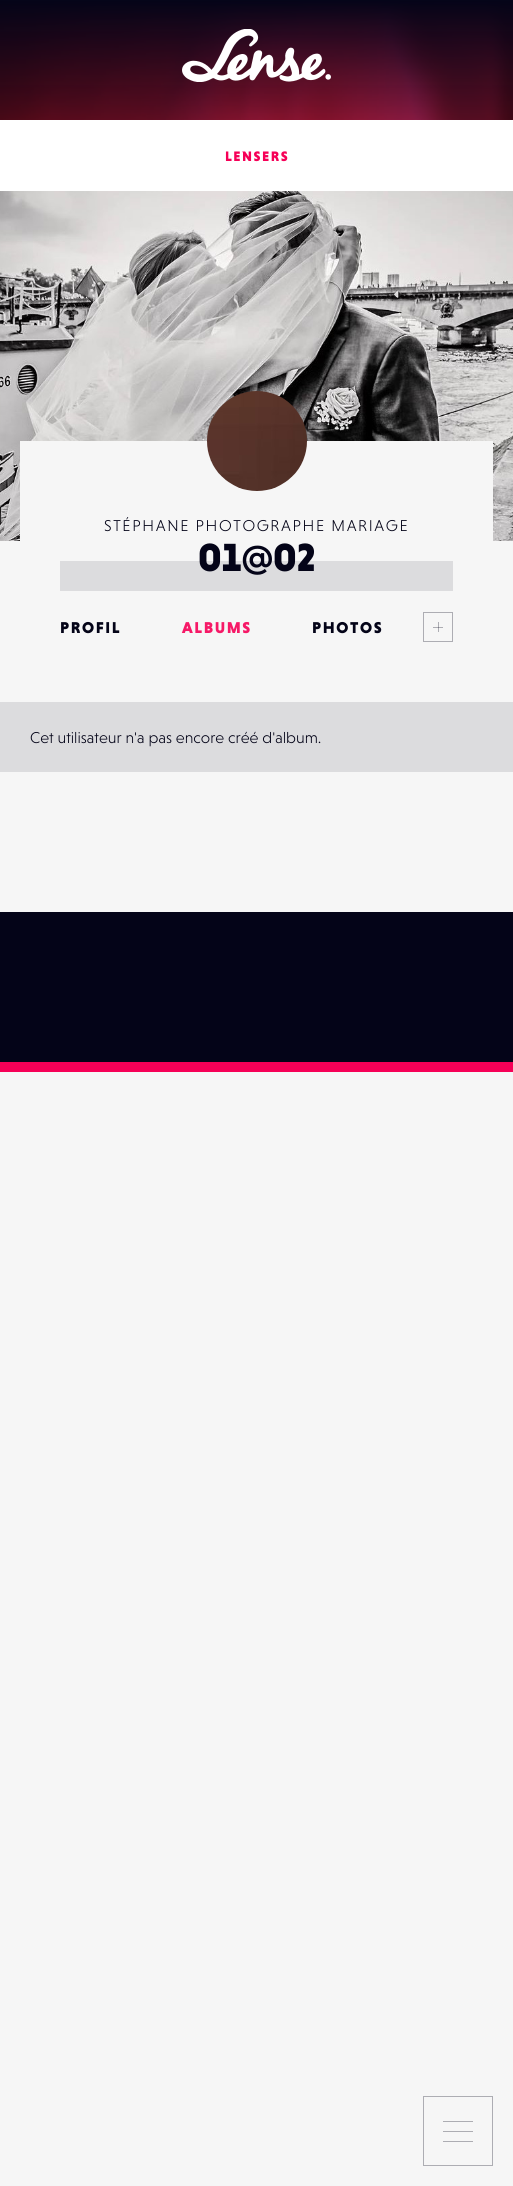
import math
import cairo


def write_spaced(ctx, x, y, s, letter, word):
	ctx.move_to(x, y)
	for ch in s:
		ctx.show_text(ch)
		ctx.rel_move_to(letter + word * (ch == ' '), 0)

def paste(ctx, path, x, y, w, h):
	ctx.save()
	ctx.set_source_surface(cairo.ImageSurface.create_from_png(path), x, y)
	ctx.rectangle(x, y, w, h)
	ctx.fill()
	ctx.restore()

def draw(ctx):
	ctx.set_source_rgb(0.961, 0.961, 0.961)
	ctx.paint()
	paste(ctx, 'media/1.png', 0, 1, 513, 119)
	gradient = cairo.LinearGradient(257, 0, 257, 220)
	gradient.add_color_stop_rgba(0, 0.016, 0.016, 0.094, 1)
	gradient.add_color_stop_rgba(1, 0.016, 0.016, 0.094, 0)
	ctx.set_source(gradient)
	ctx.rectangle(0, 0, 513, 120)
	ctx.fill()
	paste(ctx, 'media/2.png', 182, 29, 149, 53)
	ctx.set_source_rgb(1, 1, 1)
	ctx.rectangle(0, 120, 513, 71)
	ctx.fill()
	ctx.select_font_face('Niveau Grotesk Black')
	ctx.set_font_size(14)
	ctx.set_source_rgb(0.961, 0, 0.341)
	write_spaced(ctx, 225, 161, 'LENSERS', 1.5, 0)
	ctx.set_source_rgb(0.678, 0.678, 0.702)
	ctx.rectangle(438, 622, 1, 10)
	ctx.fill()
	paste(ctx, 'media/3.png', 0, 191, 513, 350)
	ctx.set_source_rgb(0.961, 0.961, 0.961)
	ctx.rectangle(20, 441, 473, 100)
	ctx.fill()
	paste(ctx, 'media/4.png', 207, 391, 100, 100)
	ctx.select_font_face('Niveau Grotesk Light')
	ctx.set_font_size(16)
	ctx.set_source_rgb(0.016, 0.016, 0.094)
	write_spaced(ctx, 104, 531, 'STÉPHANE PHOTOGRAPHE MARIAGE', 1.6, 0)
	ctx.set_source_rgb(0.863, 0.863, 0.871)
	ctx.rectangle(60, 561, 393, 30)
	ctx.fill()
	ctx.select_font_face('Niveau Grotesk Black')
	ctx.set_font_size(40)
	ctx.set_source_rgb(0.016, 0.016, 0.094)
	ctx.move_to(198, 571)
	ctx.show_text('01@02')
	ctx.set_font_size(16)
	write_spaced(ctx, 60, 633, 'PROFIL', 1.6, 0)
	ctx.set_source_rgb(0.961, 0.098, 0.404)
	write_spaced(ctx, 182, 633, 'ALBUMS', 1.6, 0)
	ctx.set_source_rgb(0.016, 0.016, 0.094)
	write_spaced(ctx, 312, 633, 'PHOTOS', 1.6, 0)
	ctx.rectangle(423.5, 612.5, 29, 29)
	ctx.set_source_rgb(0.678, 0.678, 0.702)
	ctx.set_line_width(1)
	ctx.stroke()
	ctx.rectangle(433, 627, 10, 1)
	ctx.fill()
	ctx.set_source_rgb(0.478, 0.478, 0.522)
	ctx.rectangle(438, 627, 1, 1)
	ctx.fill()
	ctx.set_source_rgb(0.863, 0.863, 0.871)
	ctx.rectangle(0, 702, 513, 70)
	ctx.fill()
	ctx.select_font_face('Niveau Grotesk Light')
	ctx.set_source_rgb(0.016, 0.016, 0.094)
	ctx.move_to(30, 743)
	ctx.show_text('Cet utilisateur n\'a pas encore créé d\'album.')
	ctx.rectangle(0, 912, 513, 150)
	ctx.fill()
	ctx.set_source_rgb(0.961, 0, 0.341)
	ctx.rectangle(0, 1062, 513, 10)
	ctx.fill()
	ctx.rectangle(423.5, 2096.5, 69, 69)
	ctx.set_source_rgb(0.678, 0.678, 0.702)
	ctx.stroke()
	ctx.rectangle(443, 2121, 30, 1)
	ctx.rectangle(443, 2131, 30, 1)
	ctx.rectangle(443, 2141, 30, 1)
	ctx.fill()


surface = cairo.ImageSurface(cairo.FORMAT_RGB24, 513, 2186)
ctx = cairo.Context(surface)
options = cairo.FontOptions()
options.set_hint_metrics(cairo.HINT_METRICS_OFF)
options.set_hint_style(cairo.HINT_STYLE_NONE)
ctx.set_font_options(options)
ctx.set_miter_limit(4)
draw(ctx)
surface.write_to_png('image.png')
